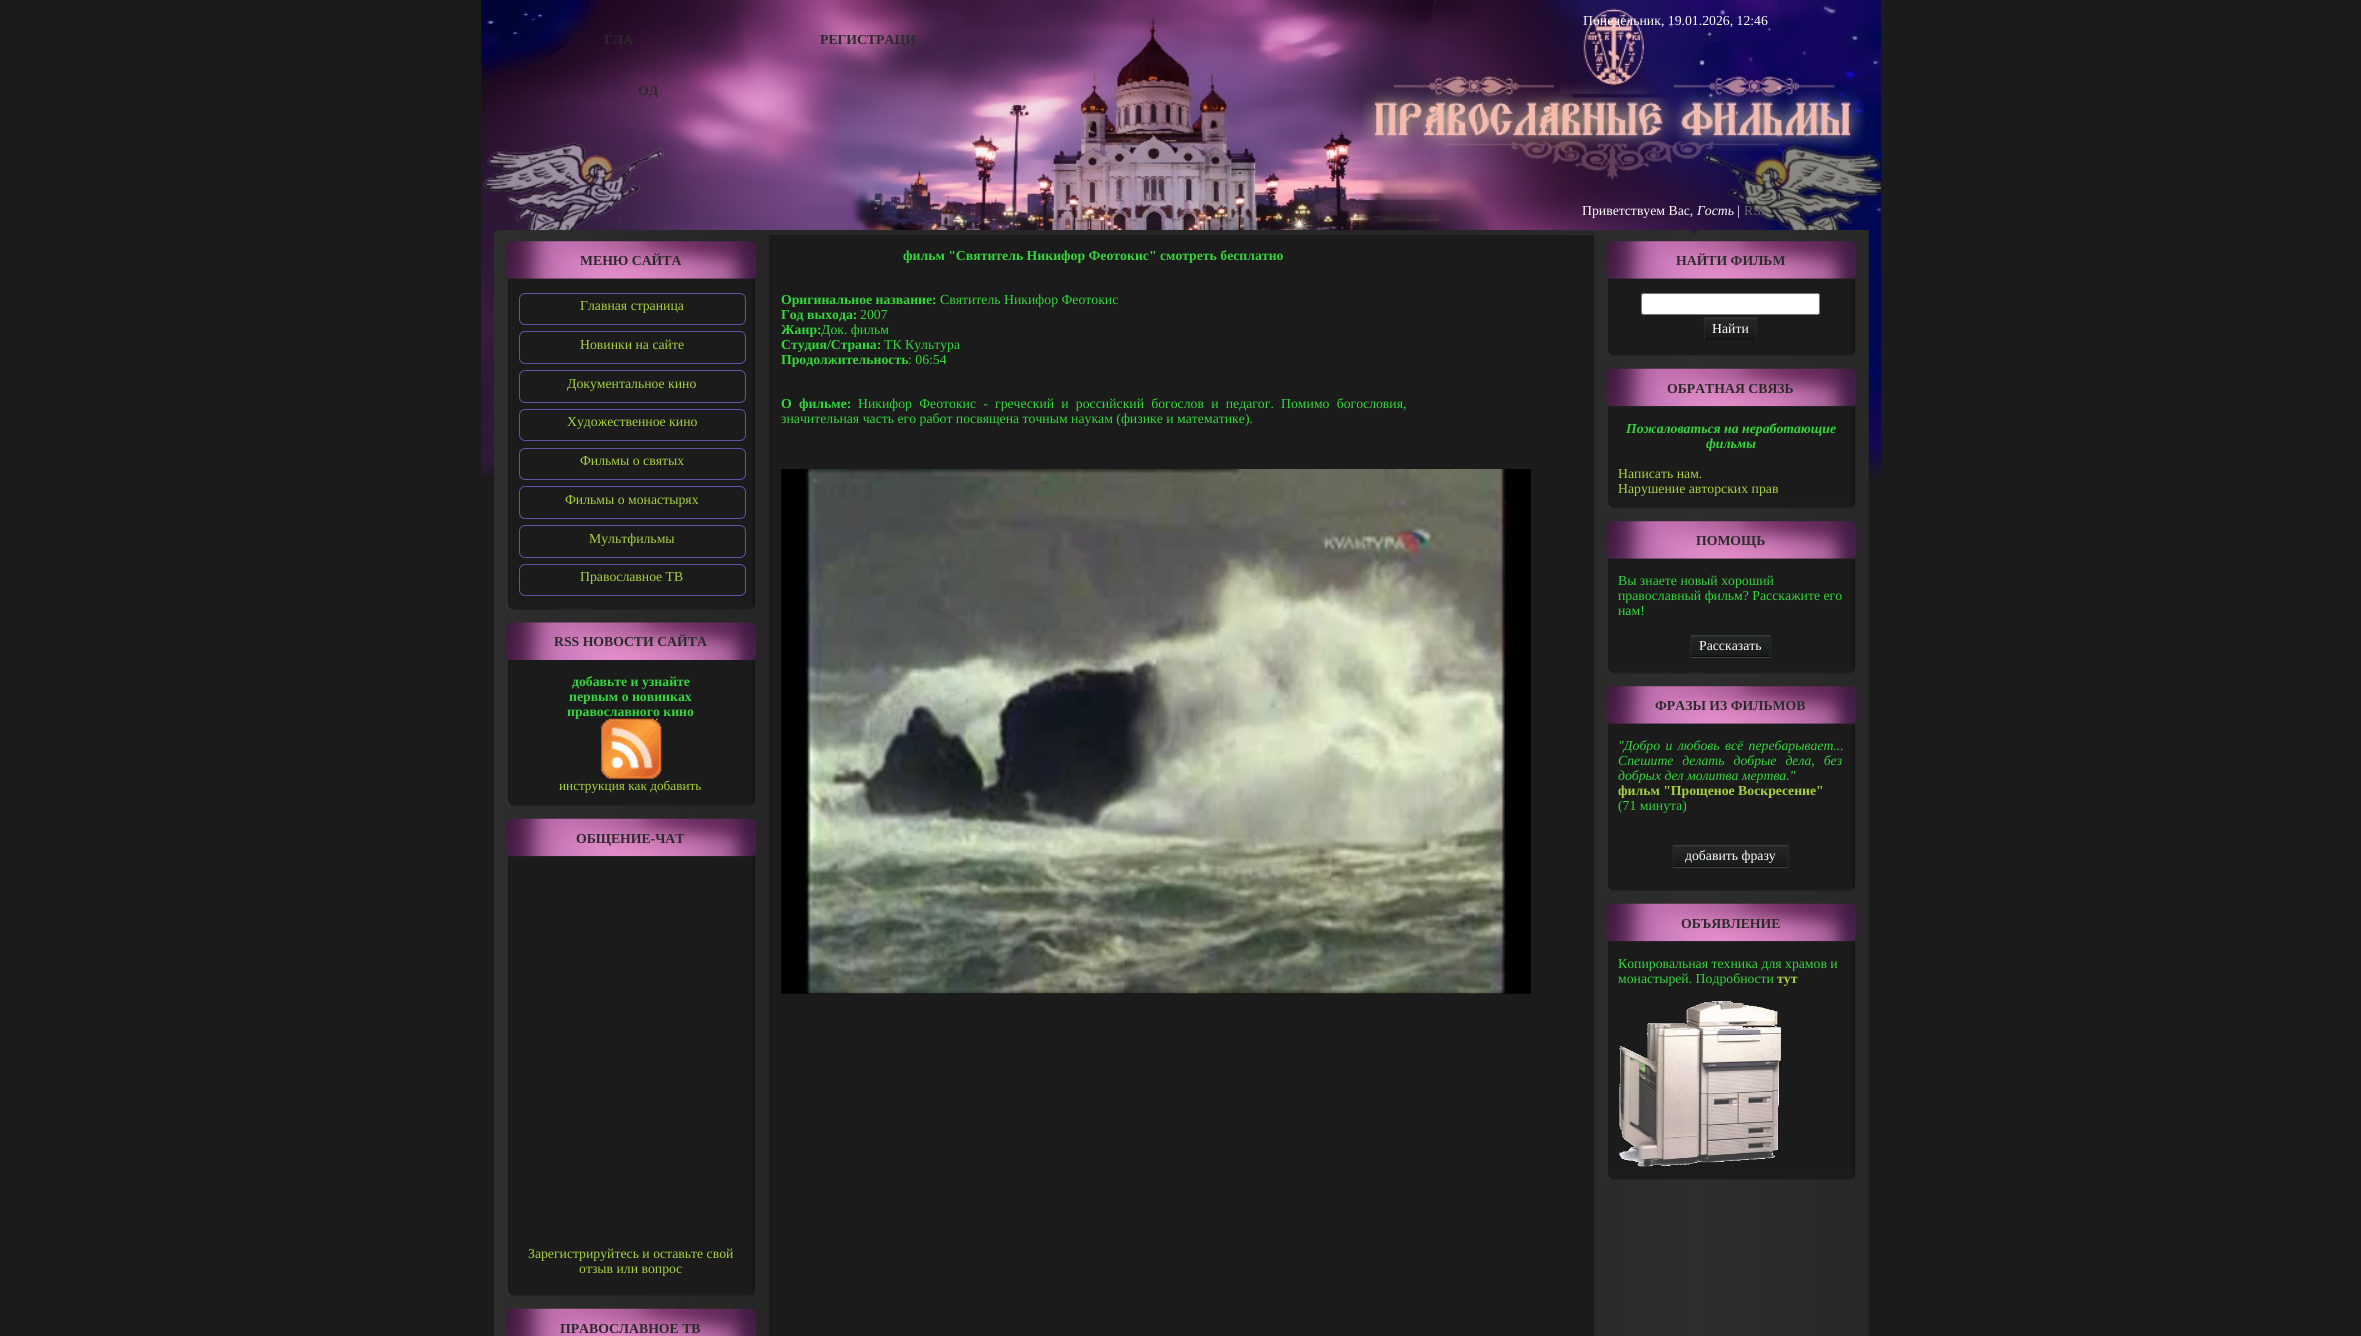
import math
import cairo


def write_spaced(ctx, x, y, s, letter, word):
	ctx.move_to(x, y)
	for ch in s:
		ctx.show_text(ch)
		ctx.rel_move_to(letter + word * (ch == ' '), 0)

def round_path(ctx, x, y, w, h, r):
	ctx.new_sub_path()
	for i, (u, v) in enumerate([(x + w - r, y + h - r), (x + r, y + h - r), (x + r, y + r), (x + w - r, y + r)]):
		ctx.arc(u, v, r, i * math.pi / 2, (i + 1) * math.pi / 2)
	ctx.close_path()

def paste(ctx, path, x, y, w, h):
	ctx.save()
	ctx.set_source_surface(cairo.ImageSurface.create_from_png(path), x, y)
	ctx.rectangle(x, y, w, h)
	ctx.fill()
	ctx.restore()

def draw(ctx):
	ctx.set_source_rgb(0.106, 0.106, 0.106)
	ctx.paint()
	paste(ctx, 'media/1.png', 481, 0, 1401, 480)
	ctx.select_font_face('Liberation Serif', cairo.FONT_SLANT_NORMAL, cairo.FONT_WEIGHT_BOLD)
	ctx.set_font_size(13.75)
	ctx.set_source_rgb(0.169, 0.169, 0.169)
	for x, y, s in [
		(604, 44, 'ГЛА'),
		(820, 44, 'РЕГИСТРАЦИ'),
		(638, 95, 'ОД'),
	]:
		ctx.move_to(x, y)
		ctx.show_text(s)
	ctx.select_font_face('Liberation Serif')
	ctx.set_source_rgb(1, 1, 1)
	ctx.move_to(1583, 25)
	ctx.show_text('Понедельник, 19.01.2026, 12:46')
	ctx.move_to(1582, 215)
	ctx.show_text('Приветствуем Вас,')
	ctx.select_font_face('Liberation Serif', cairo.FONT_SLANT_ITALIC)
	ctx.move_to(1697, 215)
	ctx.show_text('Гость')
	ctx.select_font_face('Liberation Serif')
	ctx.move_to(1737, 215)
	ctx.show_text('|')
	ctx.set_source_rgb(0.4, 0.4, 0.4)
	ctx.move_to(1744, 215)
	ctx.show_text('RSS')
	paste(ctx, 'media/2.png', 494, 230, 1375, 5)
	paste(ctx, 'media/3.png', 494, 235, 1375, 1101)
	paste(ctx, 'media/4.png', 506, 241, 251, 38)
	ctx.select_font_face('Liberation Serif', cairo.FONT_SLANT_NORMAL, cairo.FONT_WEIGHT_BOLD)
	ctx.set_source_rgb(0.169, 0.169, 0.169)
	ctx.move_to(580, 265)
	ctx.show_text('МЕНЮ САЙТА')
	paste(ctx, 'media/5.png', 506, 278, 249, 326)
	round_path(ctx, 519.5, 293.5, 226, 31, 5.5)
	ctx.set_source_rgb(0.404, 0.306, 0.655)
	ctx.set_line_width(1)
	ctx.stroke()
	ctx.select_font_face('Liberation Serif')
	ctx.set_source_rgb(0.647, 0.824, 0.247)
	ctx.move_to(580, 310)
	ctx.show_text('Главная страница')
	round_path(ctx, 519.5, 331.5, 226, 32, 5.5)
	ctx.set_source_rgb(0.404, 0.306, 0.655)
	ctx.stroke()
	ctx.set_source_rgb(0.647, 0.824, 0.247)
	ctx.move_to(580, 349)
	ctx.show_text('Новинки на сайте')
	round_path(ctx, 519.5, 370.5, 226, 32, 5.5)
	ctx.set_source_rgb(0.404, 0.306, 0.655)
	ctx.stroke()
	ctx.set_source_rgb(0.647, 0.824, 0.247)
	ctx.move_to(567, 388)
	ctx.show_text('Документальное кино')
	round_path(ctx, 519.5, 409.5, 226, 31, 5.5)
	ctx.set_source_rgb(0.404, 0.306, 0.655)
	ctx.stroke()
	ctx.set_source_rgb(0.647, 0.824, 0.247)
	ctx.move_to(567, 426)
	ctx.show_text('Художественное кино')
	round_path(ctx, 519.5, 448.5, 226, 31, 5.5)
	ctx.set_source_rgb(0.404, 0.306, 0.655)
	ctx.stroke()
	ctx.set_source_rgb(0.647, 0.824, 0.247)
	ctx.move_to(580, 465)
	ctx.show_text('Фильмы о святых')
	round_path(ctx, 519.5, 486.5, 226, 32, 5.5)
	ctx.set_source_rgb(0.404, 0.306, 0.655)
	ctx.stroke()
	ctx.set_source_rgb(0.647, 0.824, 0.247)
	ctx.move_to(565, 504)
	ctx.show_text('Фильмы о монастырях')
	round_path(ctx, 519.5, 525.5, 226, 32, 5.5)
	ctx.set_source_rgb(0.404, 0.306, 0.655)
	ctx.stroke()
	ctx.set_source_rgb(0.647, 0.824, 0.247)
	ctx.move_to(589, 543)
	ctx.show_text('Мультфильмы')
	round_path(ctx, 519.5, 564.5, 226, 31, 5.5)
	ctx.set_source_rgb(0.404, 0.306, 0.655)
	ctx.stroke()
	ctx.set_source_rgb(0.647, 0.824, 0.247)
	ctx.move_to(580, 581)
	ctx.show_text('Православное ТВ')
	paste(ctx, 'media/6.png', 506, 604, 249, 6)
	paste(ctx, 'media/7.png', 506, 622, 251, 38)
	ctx.select_font_face('Liberation Serif', cairo.FONT_SLANT_NORMAL, cairo.FONT_WEIGHT_BOLD)
	ctx.set_source_rgb(0.169, 0.169, 0.169)
	ctx.move_to(554, 646)
	ctx.show_text('RSS НОВОСТИ САЙТА')
	paste(ctx, 'media/8.png', 506, 660, 249, 140)
	ctx.set_source_rgb(0.2, 0.839, 0.231)
	for x, y, s in [
		(572, 686, 'добавьте и узнайте'),
		(569, 701, 'первым о новинках'),
		(567, 716, 'православного кино'),
	]:
		ctx.move_to(x, y)
		ctx.show_text(s)
	paste(ctx, 'media/9.png', 601, 718, 61, 61)
	ctx.select_font_face('Liberation Serif')
	ctx.set_font_size(13.25)
	ctx.set_source_rgb(0.647, 0.824, 0.247)
	ctx.move_to(559, 790)
	ctx.show_text('инструкция как добавить')
	paste(ctx, 'media/10.png', 506, 800, 249, 6)
	paste(ctx, 'media/11.png', 506, 818, 251, 39)
	ctx.select_font_face('Liberation Serif', cairo.FONT_SLANT_NORMAL, cairo.FONT_WEIGHT_BOLD)
	ctx.set_font_size(13.75)
	ctx.set_source_rgb(0.169, 0.169, 0.169)
	ctx.move_to(576, 843)
	ctx.show_text('ОБЩЕНИЕ-ЧАТ')
	paste(ctx, 'media/12.png', 506, 856, 249, 434)
	ctx.select_font_face('Liberation Serif')
	ctx.set_source_rgb(0.647, 0.824, 0.247)
	ctx.move_to(528, 1258)
	ctx.show_text('Зарегистрируйтесь и оставьте свой')
	ctx.move_to(579, 1273)
	ctx.show_text('отзыв или вопрос')
	paste(ctx, 'media/10.png', 506, 1290, 249, 6)
	paste(ctx, 'media/13.png', 506, 1308, 251, 28)
	ctx.select_font_face('Liberation Serif', cairo.FONT_SLANT_NORMAL, cairo.FONT_WEIGHT_BOLD)
	ctx.set_source_rgb(0.169, 0.169, 0.169)
	ctx.move_to(560, 1333)
	ctx.show_text('ПРАВОСЛАВНОЕ ТВ')
	ctx.set_source_rgb(0.106, 0.106, 0.106)
	ctx.rectangle(769, 235, 825, 1101)
	ctx.fill()
	ctx.set_source_rgb(0.2, 0.839, 0.231)
	ctx.move_to(903, 260)
	ctx.show_text('фильм "Святитель Никифор Феотокис" смотреть бесплатно')
	ctx.move_to(781, 304)
	ctx.show_text('Оригинальное название:')
	ctx.select_font_face('Liberation Serif')
	ctx.move_to(940, 304)
	ctx.show_text('Святитель Никифор Феотокис')
	ctx.select_font_face('Liberation Serif', cairo.FONT_SLANT_NORMAL, cairo.FONT_WEIGHT_BOLD)
	ctx.move_to(781, 319)
	ctx.show_text('Год выхода:')
	ctx.select_font_face('Liberation Serif')
	ctx.move_to(860, 319)
	ctx.show_text('2007')
	ctx.select_font_face('Liberation Serif', cairo.FONT_SLANT_NORMAL, cairo.FONT_WEIGHT_BOLD)
	ctx.move_to(781, 334)
	ctx.show_text('Жанр:')
	ctx.select_font_face('Liberation Serif')
	ctx.move_to(821, 334)
	ctx.show_text('Док. фильм')
	ctx.select_font_face('Liberation Serif', cairo.FONT_SLANT_NORMAL, cairo.FONT_WEIGHT_BOLD)
	ctx.move_to(781, 349)
	ctx.show_text('Студия/Страна:')
	ctx.select_font_face('Liberation Serif')
	ctx.move_to(884, 349)
	ctx.show_text('ТК Культура')
	ctx.select_font_face('Liberation Serif', cairo.FONT_SLANT_NORMAL, cairo.FONT_WEIGHT_BOLD)
	ctx.move_to(781, 364)
	ctx.show_text('Продолжительность')
	ctx.select_font_face('Liberation Serif')
	ctx.move_to(908, 364)
	ctx.show_text(': 06:54')
	ctx.select_font_face('Liberation Serif', cairo.FONT_SLANT_NORMAL, cairo.FONT_WEIGHT_BOLD)
	write_spaced(ctx, 781, 408, 'О фильме:', 0, 3.75)
	ctx.select_font_face('Liberation Serif')
	write_spaced(ctx, 858, 408, 'Никифор Феотокис - греческий и российский богослов и педагог. Помимо богословия,', 0, 3.75)
	ctx.move_to(781, 423)
	ctx.show_text('значительная часть его работ посвящена точным наукам (физике и математике).')
	paste(ctx, 'media/14.png', 781, 469, 750, 525)
	paste(ctx, 'media/15.png', 1606, 241, 251, 38)
	ctx.select_font_face('Liberation Serif', cairo.FONT_SLANT_NORMAL, cairo.FONT_WEIGHT_BOLD)
	ctx.set_source_rgb(0.169, 0.169, 0.169)
	ctx.move_to(1676, 265)
	ctx.show_text('НАЙТИ ФИЛЬМ')
	paste(ctx, 'media/16.png', 1606, 278, 249, 72)
	ctx.set_source_rgb(1, 1, 1)
	round_path(ctx, 1641.5, 293.5, 178, 21, 2)
	ctx.fill_preserve()
	ctx.set_source_rgb(0.463, 0.463, 0.463)
	ctx.stroke()
	paste(ctx, 'media/17.png', 1703, 317, 55, 23)
	ctx.set_source_rgb(0.145, 0.161, 0.153)
	ctx.rectangle(1756, 318, 1, 22)
	ctx.fill()
	ctx.rectangle(1704, 318, 1, 22)
	ctx.fill()
	ctx.select_font_face('Liberation Serif')
	ctx.set_source_rgb(1, 1, 1)
	ctx.move_to(1712, 333)
	ctx.show_text('Найти')
	paste(ctx, 'media/18.png', 1606, 350, 249, 6)
	paste(ctx, 'media/19.png', 1606, 368, 251, 39)
	ctx.select_font_face('Liberation Serif', cairo.FONT_SLANT_NORMAL, cairo.FONT_WEIGHT_BOLD)
	ctx.set_source_rgb(0.169, 0.169, 0.169)
	ctx.move_to(1667, 393)
	ctx.show_text('ОБРАТНАЯ СВЯЗЬ')
	paste(ctx, 'media/20.png', 1606, 406, 249, 97)
	ctx.select_font_face('Liberation Serif', cairo.FONT_SLANT_ITALIC, cairo.FONT_WEIGHT_BOLD)
	ctx.set_source_rgb(0.2, 0.839, 0.231)
	ctx.move_to(1626, 433)
	ctx.show_text('Пожаловаться на неработающие')
	ctx.move_to(1706, 448)
	ctx.show_text('фильмы')
	ctx.select_font_face('Liberation Serif')
	ctx.set_source_rgb(0.647, 0.824, 0.247)
	ctx.move_to(1618, 478)
	ctx.show_text('Написать нам.')
	ctx.move_to(1618, 493)
	ctx.show_text('Нарушение авторских прав')
	paste(ctx, 'media/21.png', 1606, 502, 249, 7)
	paste(ctx, 'media/15.png', 1606, 521, 251, 38)
	ctx.select_font_face('Liberation Serif', cairo.FONT_SLANT_NORMAL, cairo.FONT_WEIGHT_BOLD)
	ctx.set_source_rgb(0.169, 0.169, 0.169)
	ctx.move_to(1696, 545)
	ctx.show_text('ПОМОЩЬ')
	paste(ctx, 'media/22.png', 1606, 558, 249, 110)
	ctx.select_font_face('Liberation Serif')
	ctx.set_source_rgb(0.2, 0.839, 0.231)
	for x, y, s in [
		(1618, 585, 'Вы знаете новый хороший'),
		(1618, 600, 'православный фильм? Расскажите его'),
		(1618, 615, 'нам!'),
	]:
		ctx.move_to(x, y)
		ctx.show_text(s)
	paste(ctx, 'media/23.png', 1691, 635, 81, 23)
	ctx.set_source_rgb(0.145, 0.161, 0.153)
	ctx.rectangle(1770, 635, 1, 23)
	ctx.fill()
	ctx.rectangle(1690, 635, 1, 23)
	ctx.fill()
	ctx.set_source_rgb(1, 1, 1)
	ctx.move_to(1699, 650)
	ctx.show_text('Рассказать')
	paste(ctx, 'media/21.png', 1606, 667, 249, 7)
	paste(ctx, 'media/15.png', 1606, 686, 251, 38)
	ctx.select_font_face('Liberation Serif', cairo.FONT_SLANT_NORMAL, cairo.FONT_WEIGHT_BOLD)
	ctx.set_source_rgb(0.169, 0.169, 0.169)
	ctx.move_to(1655, 710)
	ctx.show_text('ФРАЗЫ ИЗ ФИЛЬМОВ')
	paste(ctx, 'media/24.png', 1606, 723, 249, 162)
	ctx.select_font_face('Liberation Serif', cairo.FONT_SLANT_ITALIC)
	ctx.set_source_rgb(0.2, 0.839, 0.231)
	write_spaced(ctx, 1618, 750, '"Добро и любовь всё перебарывает...', 0, 2)
	write_spaced(ctx, 1618, 765, 'Спешите делать добрые дела, без', 0, 5.5)
	ctx.move_to(1618, 780)
	ctx.show_text('добрых дел молитва мертва."')
	ctx.select_font_face('Liberation Serif', cairo.FONT_SLANT_NORMAL, cairo.FONT_WEIGHT_BOLD)
	ctx.set_source_rgb(0.647, 0.824, 0.247)
	ctx.move_to(1618, 795)
	ctx.show_text('фильм "Прощеное Воскресение"')
	ctx.select_font_face('Liberation Serif')
	ctx.set_source_rgb(0.2, 0.839, 0.231)
	ctx.move_to(1618, 810)
	ctx.show_text('(71 минута)')
	paste(ctx, 'media/25.png', 1672, 845, 116, 23)
	ctx.set_source_rgb(0.145, 0.161, 0.153)
	ctx.rectangle(1788, 845, 1, 23)
	ctx.fill()
	ctx.rectangle(1673, 845, 1, 23)
	ctx.fill()
	ctx.set_source_rgb(1, 1, 1)
	ctx.move_to(1685, 860)
	ctx.show_text('добавить фразу')
	paste(ctx, 'media/18.png', 1606, 885, 249, 6)
	paste(ctx, 'media/19.png', 1606, 903, 251, 39)
	ctx.select_font_face('Liberation Serif', cairo.FONT_SLANT_NORMAL, cairo.FONT_WEIGHT_BOLD)
	ctx.set_source_rgb(0.169, 0.169, 0.169)
	ctx.move_to(1681, 928)
	ctx.show_text('ОБЪЯВЛЕНИЕ')
	paste(ctx, 'media/26.png', 1606, 941, 249, 233)
	ctx.select_font_face('Liberation Serif')
	ctx.set_source_rgb(0.2, 0.839, 0.231)
	ctx.move_to(1618, 968)
	ctx.show_text('Копировальная техника для храмов и')
	ctx.move_to(1618, 983)
	ctx.show_text('монастырей. Подробности')
	ctx.select_font_face('Liberation Serif', cairo.FONT_SLANT_NORMAL, cairo.FONT_WEIGHT_BOLD)
	ctx.set_source_rgb(0.647, 0.824, 0.247)
	ctx.move_to(1777, 983)
	ctx.show_text('тут')
	paste(ctx, 'media/27.png', 1619, 1001, 162, 166)
	paste(ctx, 'media/28.png', 1606, 1174, 249, 6)


surface = cairo.ImageSurface(cairo.FORMAT_RGB24, 2361, 1336)
ctx = cairo.Context(surface)
options = cairo.FontOptions()
options.set_hint_metrics(cairo.HINT_METRICS_OFF)
options.set_hint_style(cairo.HINT_STYLE_NONE)
ctx.set_font_options(options)
ctx.set_miter_limit(4)
draw(ctx)
surface.write_to_png('image.png')
